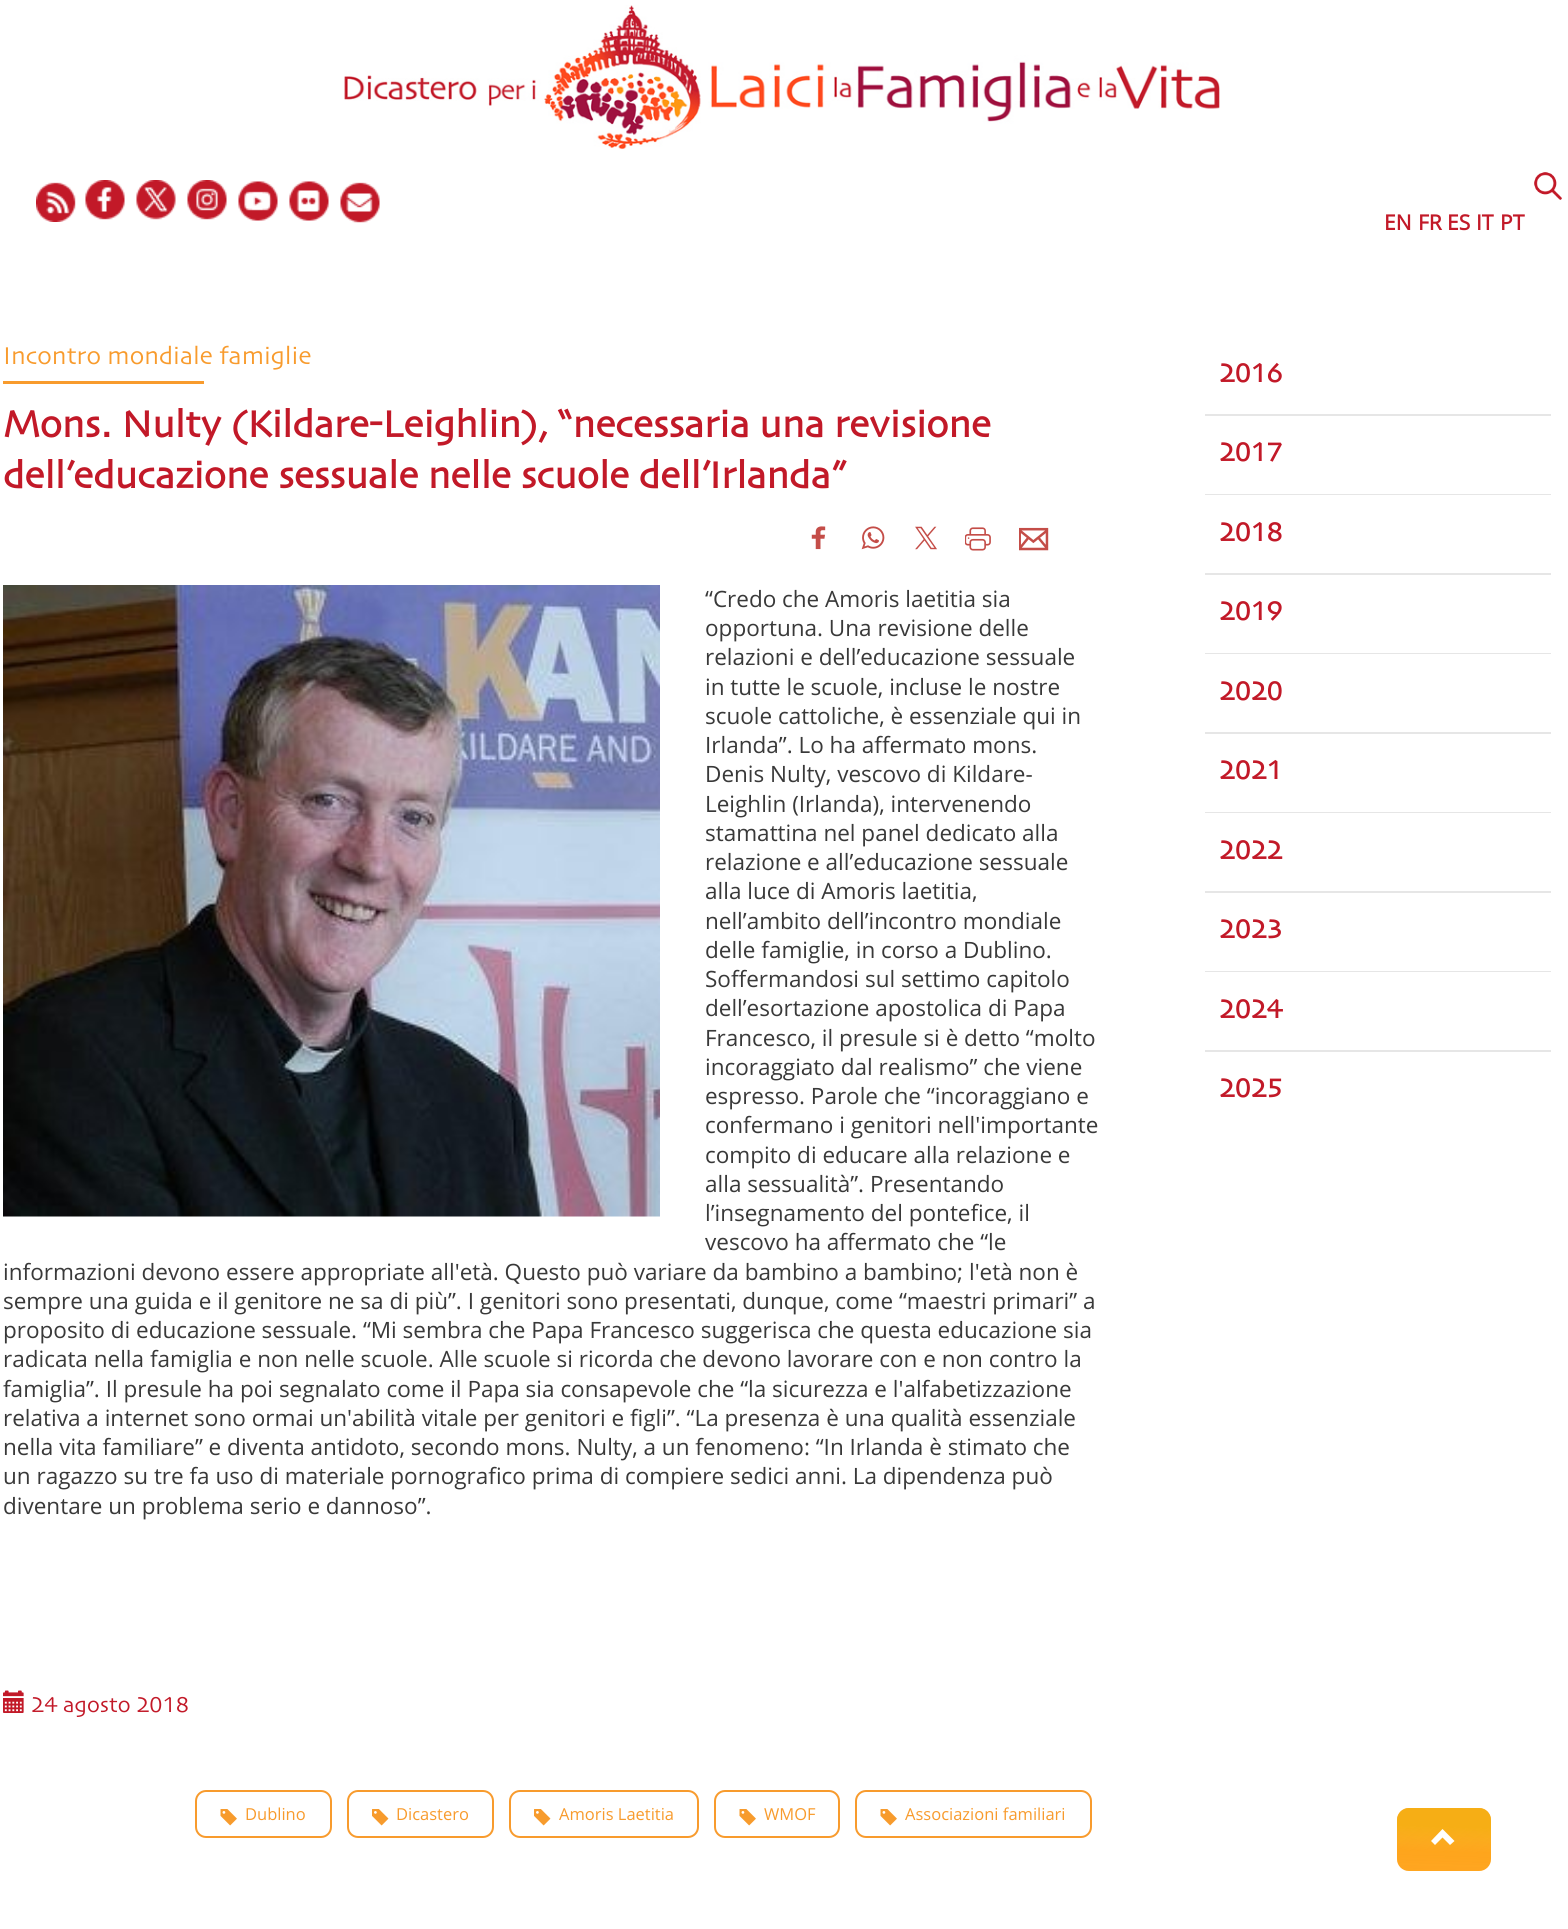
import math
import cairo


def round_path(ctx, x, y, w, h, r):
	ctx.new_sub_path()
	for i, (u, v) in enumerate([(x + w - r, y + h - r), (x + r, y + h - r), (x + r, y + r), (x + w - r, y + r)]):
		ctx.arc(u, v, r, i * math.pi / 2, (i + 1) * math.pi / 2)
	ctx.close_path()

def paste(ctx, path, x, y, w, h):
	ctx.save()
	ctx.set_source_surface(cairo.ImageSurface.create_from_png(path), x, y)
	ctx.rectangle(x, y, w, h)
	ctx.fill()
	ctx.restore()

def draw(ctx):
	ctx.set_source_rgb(1, 1, 1)
	ctx.paint()
	paste(ctx, 'media/1.png', 344, 5, 876, 145)
	paste(ctx, 'media/2.png', 36, 182, 40, 40)
	paste(ctx, 'media/3.png', 85, 180, 40, 40)
	paste(ctx, 'media/4.png', 136, 180, 40, 40)
	paste(ctx, 'media/5.png', 187, 180, 40, 40)
	paste(ctx, 'media/6.png', 238, 181, 40, 40)
	paste(ctx, 'media/7.png', 289, 181, 40, 40)
	paste(ctx, 'media/8.png', 340, 182, 40, 41)
	paste(ctx, 'media/9.png', 1534, 172, 28, 28)
	ctx.select_font_face('Open Sans', cairo.FONT_SLANT_NORMAL, cairo.FONT_WEIGHT_BOLD)
	ctx.set_font_size(21)
	ctx.set_source_rgb(0.761, 0.098, 0.157)
	for x, y, s in [
		(1384, 230, 'EN'),
		(1418, 230, 'FR'),
		(1447, 230, 'ES'),
		(1476, 230, 'IT'),
		(1500, 230, 'PT'),
	]:
		ctx.move_to(x, y)
		ctx.show_text(s)
	ctx.select_font_face('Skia')
	ctx.set_font_size(25.5)
	ctx.set_source_rgb(0.969, 0.608, 0.176)
	ctx.move_to(3, 364)
	ctx.show_text('Incontro mondiale famiglie')
	ctx.rectangle(3, 381, 201, 3)
	ctx.fill()
	ctx.select_font_face('Skia', cairo.FONT_SLANT_NORMAL, cairo.FONT_WEIGHT_BOLD)
	ctx.set_font_size(38.9)
	ctx.set_source_rgb(0.761, 0.098, 0.157)
	ctx.move_to(3, 437)
	ctx.show_text('Mons. Nulty (Kildare-Leighlin), “necessaria una revisione')
	ctx.move_to(3, 488)
	ctx.show_text('dell’educazione sessuale nelle scuole dell’Irlanda”')
	paste(ctx, 'media/10.png', 811, 526, 15, 24)
	paste(ctx, 'media/11.png', 861, 526, 24, 24)
	paste(ctx, 'media/12.png', 915, 526, 22, 24)
	paste(ctx, 'media/13.png', 965, 527, 26, 24)
	paste(ctx, 'media/14.png', 1019, 527, 30, 24)
	paste(ctx, 'media/15.png', 3, 585, 657, 632)
	ctx.select_font_face('Open Sans')
	ctx.set_font_size(22.5)
	ctx.set_source_rgb(0.224, 0.224, 0.224)
	for x, y, s in [
		(705, 607, '“Credo che Amoris laetitia sia'),
		(705, 636, 'opportuna. Una revisione delle'),
		(705, 665, 'relazioni e dell’educazione sessuale'),
		(705, 695, 'in tutte le scuole, incluse le nostre'),
		(705, 724, 'scuole cattoliche, è essenziale qui in'),
		(705, 753, 'Irlanda”. Lo ha affermato mons.'),
		(705, 782, 'Denis Nulty, vescovo di Kildare-'),
		(705, 812, 'Leighlin (Irlanda), intervenendo'),
		(705, 841, 'stamattina nel panel dedicato alla'),
		(705, 870, 'relazione e all’educazione sessuale'),
		(705, 899, 'alla luce di Amoris laetitia,'),
		(705, 929, 'nell’ambito dell’incontro mondiale'),
		(705, 958, 'delle famiglie, in corso a Dublino.'),
		(705, 987, 'Soffermandosi sul settimo capitolo'),
		(705, 1016, 'dell’esortazione apostolica di Papa'),
		(705, 1046, 'Francesco, il presule si è detto “molto'),
		(705, 1075, 'incoraggiato dal realismo” che viene'),
		(705, 1104, 'espresso. Parole che “incoraggiano e'),
		(705, 1133, 'confermano i genitori nell\'importante'),
		(705, 1163, 'compito di educare alla relazione e'),
		(705, 1192, 'alla sessualità”. Presentando'),
		(705, 1221, 'l’insegnamento del pontefice, il'),
		(705, 1250, 'vescovo ha affermato che “le'),
		(3, 1280, 'informazioni devono essere appropriate all\'età. Questo può variare da bambino a bambino; l\'età non è'),
		(3, 1309, 'sempre una guida e il genitore ne sa di più”. I genitori sono presentati, dunque, come “maestri primari” a'),
		(3, 1338, 'proposito di educazione sessuale. “Mi sembra che Papa Francesco suggerisca che questa educazione sia'),
		(3, 1367, 'radicata nella famiglia e non nelle scuole. Alle scuole si ricorda che devono lavorare con e non contro la'),
		(3, 1397, 'famiglia”. Il presule ha poi segnalato come il Papa sia consapevole che “la sicurezza e l\'alfabetizzazione'),
		(3, 1426, 'relativa a internet sono ormai un\'abilità vitale per genitori e figli”. “La presenza è una qualità essenziale'),
		(3, 1455, 'nella vita familiare” e diventa antidoto, secondo mons. Nulty, a un fenomeno: “In Irlanda è stimato che'),
		(3, 1484, 'un ragazzo su tre fa uso di materiale pornografico prima di compiere sedici anni. La dipendenza può'),
		(3, 1514, 'diventare un problema serio e dannoso”.'),
	]:
		ctx.move_to(x, y)
		ctx.show_text(s)
	paste(ctx, 'media/16.png', 3, 1690, 21, 23)
	ctx.select_font_face('Skia')
	ctx.set_source_rgb(0.761, 0.098, 0.157)
	ctx.move_to(31, 1712)
	ctx.show_text('24 agosto 2018')
	round_path(ctx, 196, 1791, 135, 46, 10)
	ctx.set_source_rgb(0.969, 0.608, 0.176)
	ctx.stroke()
	paste(ctx, 'media/17.png', 220, 1809, 17, 17)
	ctx.select_font_face('Open Sans')
	ctx.set_font_size(16.5)
	ctx.move_to(245, 1820)
	ctx.show_text('Dublino')
	round_path(ctx, 348, 1791, 145, 46, 10)
	ctx.stroke()
	paste(ctx, 'media/18.png', 372, 1809, 17, 17)
	ctx.move_to(396, 1820)
	ctx.show_text('Dicastero')
	round_path(ctx, 510, 1791, 188, 46, 10)
	ctx.stroke()
	paste(ctx, 'media/18.png', 534, 1809, 17, 17)
	ctx.move_to(559, 1820)
	ctx.show_text('Amoris Laetitia')
	round_path(ctx, 715, 1791, 124, 46, 10)
	ctx.stroke()
	paste(ctx, 'media/17.png', 739, 1809, 17, 17)
	ctx.move_to(764, 1820)
	ctx.show_text('WMOF')
	round_path(ctx, 856, 1791, 235, 46, 10)
	ctx.stroke()
	paste(ctx, 'media/17.png', 880, 1809, 17, 17)
	ctx.move_to(905, 1820)
	ctx.show_text('Associazioni familiari')
	ctx.set_source_rgb(0.902, 0.902, 0.902)
	ctx.rectangle(1205, 414, 346, 2)
	ctx.fill()
	ctx.select_font_face('Skia', cairo.FONT_SLANT_NORMAL, cairo.FONT_WEIGHT_BOLD)
	ctx.set_font_size(27)
	ctx.set_source_rgb(0.761, 0.098, 0.157)
	ctx.move_to(1219, 382)
	ctx.show_text('2016')
	ctx.set_source_rgb(0.902, 0.902, 0.902)
	ctx.rectangle(1205, 494, 346, 1)
	ctx.fill()
	ctx.set_source_rgb(0.761, 0.098, 0.157)
	ctx.move_to(1219, 461)
	ctx.show_text('2017')
	ctx.set_source_rgb(0.902, 0.902, 0.902)
	ctx.rectangle(1205, 573, 346, 2)
	ctx.fill()
	ctx.set_source_rgb(0.761, 0.098, 0.157)
	ctx.move_to(1219, 541)
	ctx.show_text('2018')
	ctx.set_source_rgb(0.902, 0.902, 0.902)
	ctx.rectangle(1205, 653, 346, 1)
	ctx.fill()
	ctx.set_source_rgb(0.761, 0.098, 0.157)
	ctx.move_to(1219, 620)
	ctx.show_text('2019')
	ctx.set_source_rgb(0.902, 0.902, 0.902)
	ctx.rectangle(1205, 732, 346, 2)
	ctx.fill()
	ctx.set_source_rgb(0.761, 0.098, 0.157)
	ctx.move_to(1219, 700)
	ctx.show_text('2020')
	ctx.set_source_rgb(0.902, 0.902, 0.902)
	ctx.rectangle(1205, 812, 346, 1)
	ctx.fill()
	ctx.set_source_rgb(0.761, 0.098, 0.157)
	ctx.move_to(1219, 779)
	ctx.show_text('2021')
	ctx.set_source_rgb(0.902, 0.902, 0.902)
	ctx.rectangle(1205, 891, 346, 2)
	ctx.fill()
	ctx.set_source_rgb(0.761, 0.098, 0.157)
	ctx.move_to(1219, 859)
	ctx.show_text('2022')
	ctx.set_source_rgb(0.902, 0.902, 0.902)
	ctx.rectangle(1205, 971, 346, 1)
	ctx.fill()
	ctx.set_source_rgb(0.761, 0.098, 0.157)
	ctx.move_to(1219, 938)
	ctx.show_text('2023')
	ctx.set_source_rgb(0.902, 0.902, 0.902)
	ctx.rectangle(1205, 1050, 346, 2)
	ctx.fill()
	ctx.set_source_rgb(0.761, 0.098, 0.157)
	ctx.move_to(1219, 1018)
	ctx.show_text('2024')
	ctx.move_to(1219, 1097)
	ctx.show_text('2025')
	ctx.set_source_rgb(1, 0.596, 0.067)
	round_path(ctx, 1397, 1808, 94, 63, 12)
	ctx.fill()
	gradient = cairo.LinearGradient(1445, 1806, 1443, 1872)
	gradient.add_color_stop_rgba(0.32, 0.953, 0.714, 0.09, 0.74)
	gradient.add_color_stop_rgba(0.69, 0.984, 0.773, 0.227, 0.28)
	gradient.add_color_stop_rgba(0.99, 1, 0.808, 0.306, 0.25)
	ctx.set_source(gradient)
	round_path(ctx, 1397, 1808, 94, 63, 12)
	ctx.fill()
	ctx.set_source_rgb(1, 1, 1)
	ctx.new_path()
	ctx.move_to(1454.5, 1841)
	ctx.line_to(1450, 1845)
	ctx.line_to(1442.5, 1837.5)
	ctx.line_to(1435, 1845)
	ctx.line_to(1431, 1841)
	ctx.line_to(1442.5, 1829)
	ctx.close_path()
	ctx.fill()


surface = cairo.ImageSurface(cairo.FORMAT_RGB24, 1568, 1929)
ctx = cairo.Context(surface)
options = cairo.FontOptions()
options.set_hint_metrics(cairo.HINT_METRICS_OFF)
options.set_hint_style(cairo.HINT_STYLE_NONE)
ctx.set_font_options(options)
ctx.set_miter_limit(4)
draw(ctx)
surface.write_to_png('image.png')
